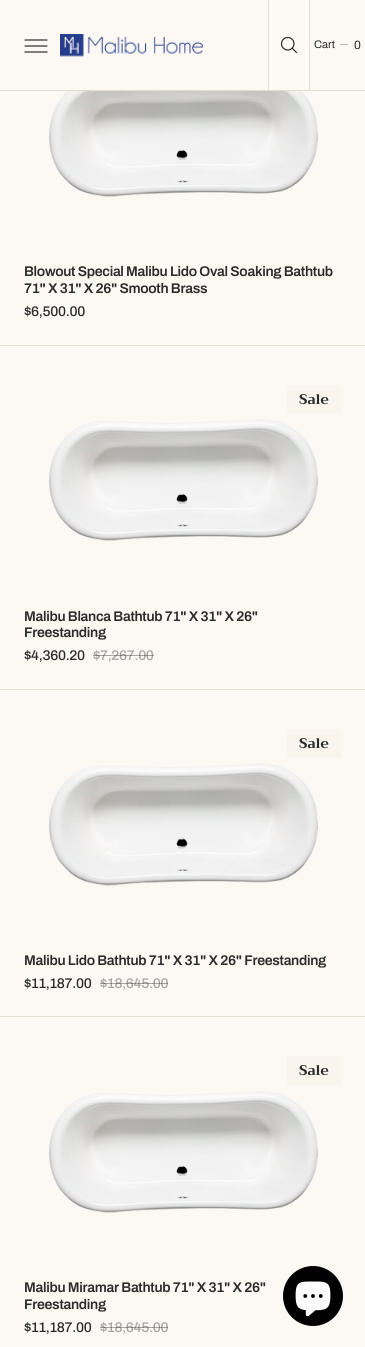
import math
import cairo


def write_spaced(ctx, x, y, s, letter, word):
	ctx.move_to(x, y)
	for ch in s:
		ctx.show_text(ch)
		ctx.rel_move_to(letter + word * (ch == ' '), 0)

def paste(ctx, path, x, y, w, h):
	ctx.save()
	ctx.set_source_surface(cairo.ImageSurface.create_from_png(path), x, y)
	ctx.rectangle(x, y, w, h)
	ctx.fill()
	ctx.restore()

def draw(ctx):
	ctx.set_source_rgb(0.988, 0.976, 0.957)
	ctx.paint()
	ctx.set_source_rgb(0.886, 0.867, 0.816)
	ctx.rectangle(0, 90, 365, 1)
	ctx.fill()
	ctx.new_path()
	ctx.move_to(25, 40)
	ctx.line_to(47, 40)
	ctx.move_to(25, 46)
	ctx.line_to(47, 46)
	ctx.move_to(25, 52)
	ctx.line_to(47, 52)
	ctx.set_source_rgb(0.169, 0.169, 0.169)
	ctx.set_line_width(1.2)
	ctx.set_line_cap(cairo.LINE_CAP_ROUND)
	ctx.stroke()
	paste(ctx, 'media/1.png', 60, 34, 143, 23)
	ctx.set_source_rgb(0.886, 0.867, 0.816)
	ctx.rectangle(268, 0, 1, 90)
	ctx.fill()
	paste(ctx, 'media/2.png', 280, 36, 18, 18)
	ctx.rectangle(309, 0, 1, 90)
	ctx.fill()
	ctx.select_font_face('Archivo')
	ctx.set_font_size(11)
	ctx.set_source_rgb(0.169, 0.169, 0.169)
	ctx.move_to(314, 48)
	ctx.show_text('Cart')
	ctx.set_source_rgb(0.741, 0.733, 0.722)
	ctx.rectangle(340, 44, 8, 1)
	ctx.fill()
	ctx.set_font_size(12)
	ctx.set_source_rgb(0.169, 0.169, 0.169)
	ctx.move_to(354, 49)
	ctx.show_text('0')
	paste(ctx, 'media/3.png', 49, 91, 269, 106)
	ctx.select_font_face('Archivo SemiBold')
	ctx.set_font_size(14)
	write_spaced(ctx, 24, 276, 'Blowout Special Malibu Lido Oval Soaking Bathtub', -0.3, 0)
	write_spaced(ctx, 24, 293, '71" X 31" X 26" Smooth Brass', -0.3, 0)
	ctx.select_font_face('Archivo Medium')
	write_spaced(ctx, 24, 316, '$6,500.00', -0.3, 0)
	ctx.set_source_rgb(0.886, 0.867, 0.816)
	ctx.rectangle(0, 345, 365, 1)
	ctx.fill()
	ctx.set_source_rgb(0.973, 0.957, 0.925)
	ctx.new_path()
	ctx.move_to(289, 385)
	ctx.line_to(341, 385)
	ctx.line_to(341, 413)
	ctx.line_to(289, 413)
	ctx.curve_to(288, 413, 287, 412, 287, 411)
	ctx.line_to(287, 387)
	ctx.curve_to(287, 386, 288, 385, 289, 385)
	ctx.close_path()
	ctx.fill()
	ctx.select_font_face('Trirong', cairo.FONT_SLANT_NORMAL, cairo.FONT_WEIGHT_BOLD)
	ctx.set_source_rgb(0.169, 0.169, 0.169)
	ctx.move_to(299, 404)
	ctx.show_text('Sale')
	paste(ctx, 'media/4.png', 49, 419, 269, 122)
	ctx.select_font_face('Archivo SemiBold')
	write_spaced(ctx, 24, 621, 'Malibu Blanca Bathtub 71" X 31" X 26"', -0.3, 0)
	write_spaced(ctx, 24, 637, 'Freestanding', -0.3, 0)
	ctx.select_font_face('Archivo Medium')
	write_spaced(ctx, 24, 660, '$4,360.20', -0.3, 0)
	ctx.set_source_rgb(0.659, 0.655, 0.643)
	write_spaced(ctx, 93, 660, '$7,267.00', -0.3, 0)
	ctx.set_source_rgba(0.169, 0.169, 0.169, 0.4)
	ctx.rectangle(93, 655, 61, 1)
	ctx.fill()
	ctx.set_source_rgb(0.886, 0.867, 0.816)
	ctx.rectangle(0, 689, 365, 1)
	ctx.fill()
	ctx.set_source_rgb(0.973, 0.957, 0.925)
	ctx.new_path()
	ctx.move_to(289, 729)
	ctx.line_to(341, 729)
	ctx.line_to(341, 758)
	ctx.line_to(289, 758)
	ctx.curve_to(288, 758, 287, 757, 287, 756)
	ctx.line_to(287, 731)
	ctx.curve_to(287, 730, 288, 729, 289, 729)
	ctx.close_path()
	ctx.fill()
	ctx.select_font_face('Trirong', cairo.FONT_SLANT_NORMAL, cairo.FONT_WEIGHT_BOLD)
	ctx.set_source_rgb(0.169, 0.169, 0.169)
	ctx.move_to(299, 748)
	ctx.show_text('Sale')
	paste(ctx, 'media/5.png', 49, 763, 269, 123)
	ctx.select_font_face('Archivo SemiBold')
	write_spaced(ctx, 24, 965, 'Malibu Lido Bathtub 71" X 31" X 26" Freestanding', -0.3, 0)
	ctx.select_font_face('Archivo Medium')
	write_spaced(ctx, 24, 988, '$11,187.00', -0.3, 0)
	ctx.set_source_rgb(0.659, 0.655, 0.643)
	write_spaced(ctx, 100, 988, '$18,645.00', -0.3, 0)
	ctx.set_source_rgba(0.169, 0.169, 0.169, 0.4)
	ctx.rectangle(100, 983, 68, 1)
	ctx.fill()
	ctx.set_source_rgb(0.886, 0.867, 0.816)
	ctx.rectangle(0, 1016, 365, 1)
	ctx.fill()
	ctx.set_source_rgb(0.973, 0.957, 0.925)
	ctx.new_path()
	ctx.move_to(289, 1056)
	ctx.line_to(341, 1056)
	ctx.line_to(341, 1085)
	ctx.line_to(289, 1085)
	ctx.curve_to(288, 1085, 287, 1084, 287, 1083)
	ctx.line_to(287, 1058)
	ctx.curve_to(287, 1057, 288, 1056, 289, 1056)
	ctx.close_path()
	ctx.fill()
	ctx.select_font_face('Trirong', cairo.FONT_SLANT_NORMAL, cairo.FONT_WEIGHT_BOLD)
	ctx.set_source_rgb(0.169, 0.169, 0.169)
	ctx.move_to(299, 1075)
	ctx.show_text('Sale')
	paste(ctx, 'media/4.png', 49, 1091, 269, 122)
	ctx.select_font_face('Archivo SemiBold')
	write_spaced(ctx, 24, 1292, 'Malibu Miramar Bathtub 71" X 31" X 26"', -0.3, 0)
	write_spaced(ctx, 24, 1309, 'Freestanding', -0.3, 0)
	ctx.select_font_face('Archivo Medium')
	write_spaced(ctx, 24, 1332, '$11,187.00', -0.3, 0)
	ctx.set_source_rgb(0.659, 0.655, 0.643)
	write_spaced(ctx, 100, 1332, '$18,645.00', -0.3, 0)
	ctx.set_source_rgba(0.169, 0.169, 0.169, 0.4)
	ctx.rectangle(100, 1327, 68, 1)
	ctx.fill()
	ctx.set_source_rgb(0, 0, 0)
	ctx.arc(313, 1296, 30, 0, 2 * math.pi)
	ctx.fill()
	paste(ctx, 'media/6.png', 295, 1281, 36, 36)


surface = cairo.ImageSurface(cairo.FORMAT_RGB24, 365, 1347)
ctx = cairo.Context(surface)
options = cairo.FontOptions()
options.set_hint_metrics(cairo.HINT_METRICS_OFF)
options.set_hint_style(cairo.HINT_STYLE_NONE)
ctx.set_font_options(options)
ctx.set_miter_limit(4)
draw(ctx)
surface.write_to_png('image.png')
